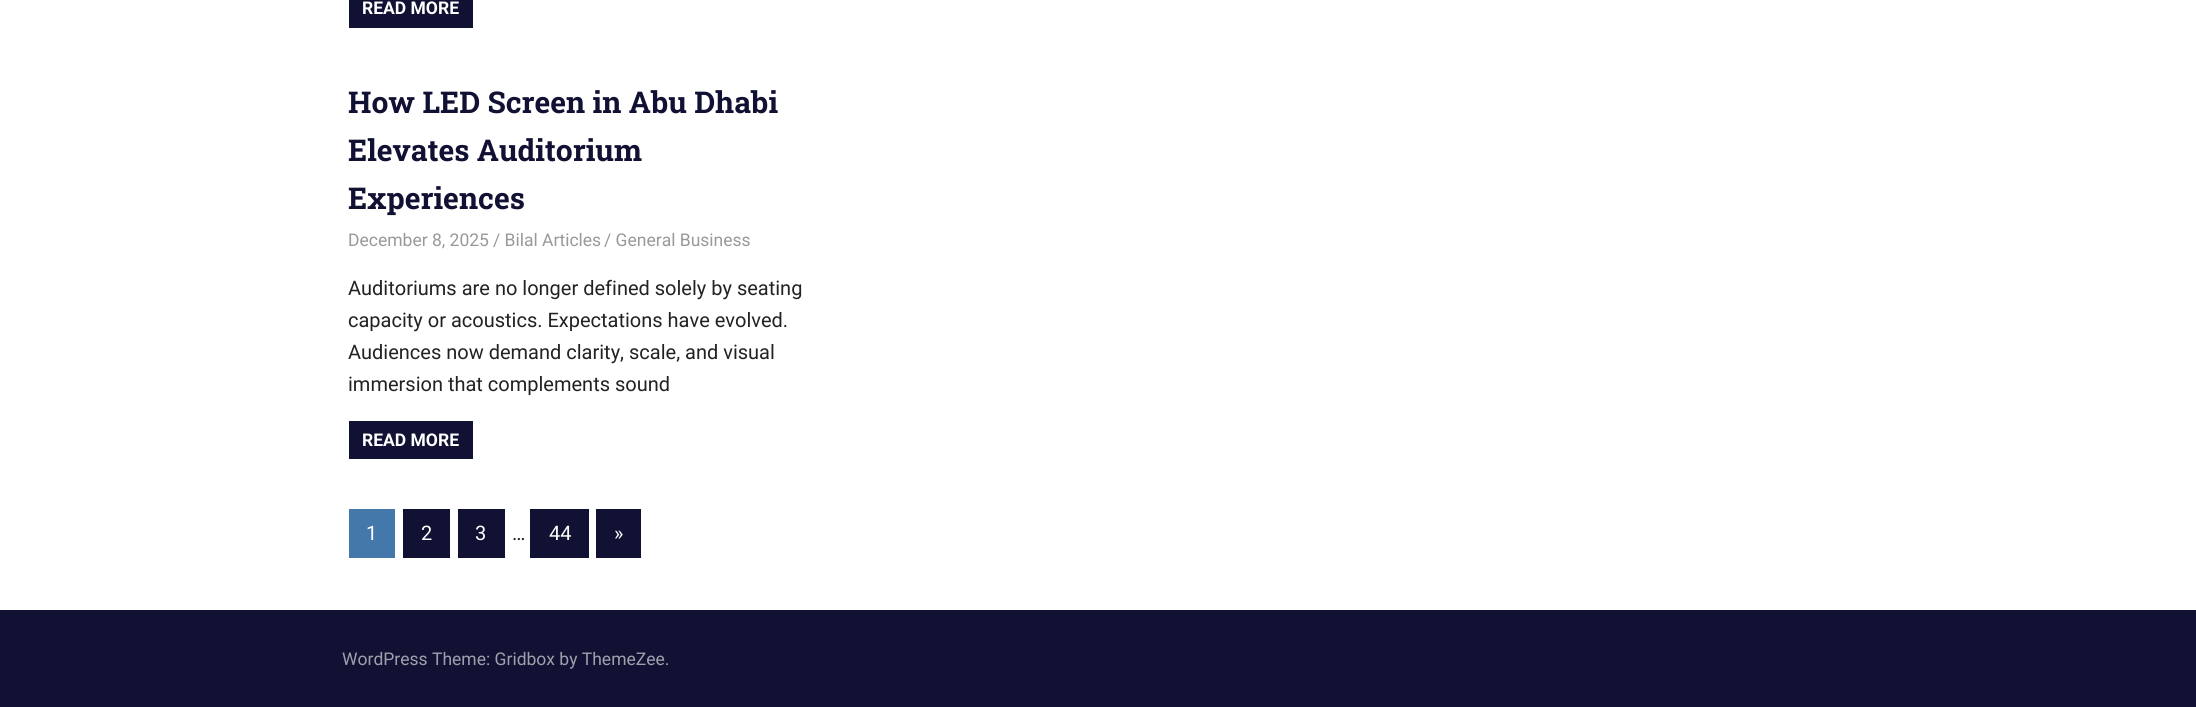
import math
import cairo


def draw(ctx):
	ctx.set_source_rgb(1, 1, 1)
	ctx.paint()
	ctx.set_source_rgb(0.067, 0.067, 0.2)
	ctx.rectangle(349, 0, 124, 28)
	ctx.fill()
	ctx.select_font_face('Roboto', cairo.FONT_SLANT_NORMAL, cairo.FONT_WEIGHT_BOLD)
	ctx.set_font_size(17.5)
	ctx.set_source_rgb(1, 1, 1)
	ctx.move_to(362, 14)
	ctx.show_text('READ MORE')
	ctx.select_font_face('Roboto Slab', cairo.FONT_SLANT_NORMAL, cairo.FONT_WEIGHT_BOLD)
	ctx.set_font_size(30)
	ctx.set_source_rgb(0.067, 0.067, 0.2)
	for x, y, s in [
		(348, 113, 'How LED Screen in Abu Dhabi'),
		(348, 161, 'Elevates Auditorium'),
		(348, 209, 'Experiences'),
	]:
		ctx.move_to(x, y)
		ctx.show_text(s)
	ctx.select_font_face('Roboto')
	ctx.set_font_size(17.5)
	ctx.set_source_rgb(0.6, 0.6, 0.6)
	for x, y, s in [
		(348, 246, 'December 8, 2025'),
		(493, 246, '/ Bilal Articles'),
		(604, 246, '/ General Business'),
	]:
		ctx.move_to(x, y)
		ctx.show_text(s)
	ctx.set_font_size(20)
	ctx.set_source_rgb(0.133, 0.133, 0.133)
	for x, y, s in [
		(348, 295, 'Auditoriums are no longer defined solely by seating'),
		(348, 327, 'capacity or acoustics. Expectations have evolved.'),
		(348, 359, 'Audiences now demand clarity, scale, and visual'),
		(348, 391, 'immersion that complements sound'),
	]:
		ctx.move_to(x, y)
		ctx.show_text(s)
	ctx.set_source_rgb(0.067, 0.067, 0.2)
	ctx.rectangle(349, 421, 124, 38)
	ctx.fill()
	ctx.select_font_face('Roboto', cairo.FONT_SLANT_NORMAL, cairo.FONT_WEIGHT_BOLD)
	ctx.set_font_size(17.5)
	ctx.set_source_rgb(1, 1, 1)
	ctx.move_to(362, 446)
	ctx.show_text('READ MORE')
	ctx.set_source_rgb(0.267, 0.467, 0.667)
	ctx.rectangle(349, 509, 46, 49)
	ctx.fill()
	ctx.select_font_face('Roboto')
	ctx.set_font_size(20)
	ctx.set_source_rgb(1, 1, 1)
	ctx.move_to(366, 540)
	ctx.show_text('1')
	ctx.set_source_rgb(0.067, 0.067, 0.2)
	ctx.rectangle(403, 509, 47, 49)
	ctx.fill()
	ctx.set_source_rgb(1, 1, 1)
	ctx.move_to(421, 540)
	ctx.show_text('2')
	ctx.set_source_rgb(0.067, 0.067, 0.2)
	ctx.rectangle(458, 509, 47, 49)
	ctx.fill()
	ctx.set_source_rgb(1, 1, 1)
	ctx.move_to(475, 540)
	ctx.show_text('3')
	ctx.set_source_rgb(0.133, 0.133, 0.133)
	ctx.move_to(512, 540)
	ctx.show_text('…')
	ctx.set_source_rgb(0.067, 0.067, 0.2)
	ctx.rectangle(530, 509, 59, 49)
	ctx.fill()
	ctx.set_source_rgb(1, 1, 1)
	ctx.move_to(549, 540)
	ctx.show_text('44')
	ctx.set_source_rgb(0.067, 0.067, 0.2)
	ctx.rectangle(596, 509, 45, 49)
	ctx.fill()
	ctx.set_source_rgb(1, 1, 1)
	ctx.move_to(614, 540)
	ctx.show_text('»')
	ctx.set_source_rgb(0.067, 0.067, 0.2)
	ctx.rectangle(0, 610, 2196, 97)
	ctx.fill()
	ctx.set_font_size(17.5)
	ctx.set_source_rgb(0.627, 0.627, 0.678)
	ctx.move_to(342, 665)
	ctx.show_text('WordPress Theme: Gridbox by ThemeZee.')


surface = cairo.ImageSurface(cairo.FORMAT_RGB24, 2196, 707)
ctx = cairo.Context(surface)
options = cairo.FontOptions()
options.set_hint_metrics(cairo.HINT_METRICS_OFF)
options.set_hint_style(cairo.HINT_STYLE_NONE)
ctx.set_font_options(options)
ctx.set_miter_limit(4)
draw(ctx)
surface.write_to_png('image.png')
